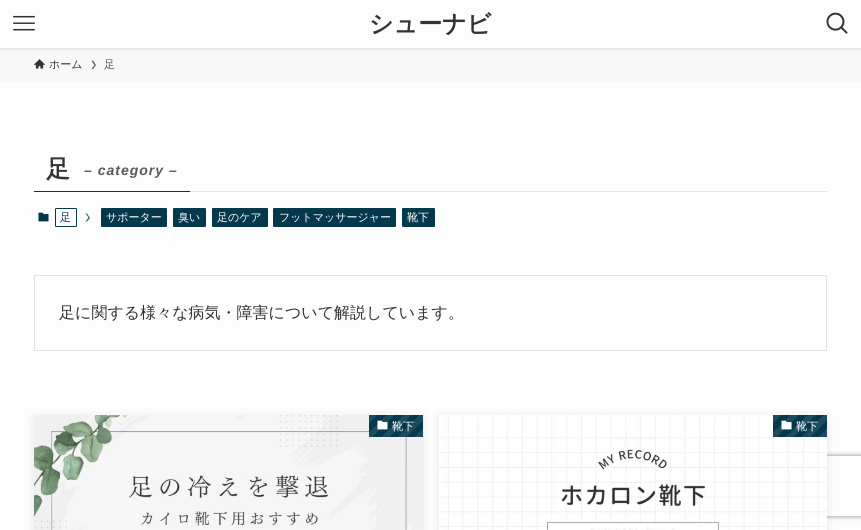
import math
import cairo


def write_spaced(ctx, x, y, s, letter, word):
	ctx.move_to(x, y)
	for ch in s:
		ctx.show_text(ch)
		ctx.rel_move_to(letter + word * (ch == ' '), 0)

def round_path(ctx, x, y, w, h, r):
	ctx.new_sub_path()
	for i, (u, v) in enumerate([(x + w - r, y + h - r), (x + r, y + h - r), (x + r, y + r), (x + w - r, y + r)]):
		ctx.arc(u, v, r, i * math.pi / 2, (i + 1) * math.pi / 2)
	ctx.close_path()

def blur_box(ctx, x, y, w, h, r, blur, alpha):
	ctx.push_group_with_content(cairo.CONTENT_ALPHA)
	ctx.set_operator(cairo.OPERATOR_SOURCE)
	for i in range(15, -16, -2):
		e = blur * i / 6
		if min(w, h) + 2 * e > 0:
			ctx.set_source_rgba(0, 0, 0, alpha * math.erfc((i - 1) / 8.5) / 2)
			round_path(ctx, x - e, y - e, w + 2 * e, h + 2 * e, max(0, min(r + e + blur * .6, min(w, h) / 2 + e)))
			ctx.fill()
	ctx.mask(ctx.pop_group())

def paste(ctx, path, x, y, w, h):
	ctx.save()
	ctx.set_source_surface(cairo.ImageSurface.create_from_png(path), x, y)
	ctx.rectangle(x, y, w, h)
	ctx.fill()
	ctx.restore()

def draw(ctx):
	ctx.set_source_rgb(0.992, 0.992, 0.992)
	ctx.paint()
	ctx.set_source_rgb(0.969, 0.969, 0.969)
	ctx.rectangle(0, 48, 861, 34)
	ctx.fill()
	ctx.save()
	ctx.rectangle(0, 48, 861, 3)
	ctx.clip()
	ctx.set_source_rgb(0, 0, 0)
	blur_box(ctx, 0, 1, 861, 48, 0, 2, 0.12)
	ctx.restore()
	paste(ctx, 'media/1.png', 13, 15, 22, 16)
	ctx.select_font_face('WenQuanYi Zen Hei', cairo.FONT_SLANT_NORMAL, cairo.FONT_WEIGHT_BOLD)
	ctx.set_font_size(24)
	ctx.set_source_rgb(0.2, 0.2, 0.2)
	ctx.move_to(369, 32)
	ctx.show_text('シューナビ')
	paste(ctx, 'media/2.png', 826, 12, 22, 22)
	paste(ctx, 'media/3.png', 34, 59, 11, 10)
	ctx.select_font_face('WenQuanYi Zen Hei Medium')
	ctx.set_font_size(11)
	ctx.move_to(49, 68)
	ctx.show_text('ホーム')
	ctx.set_source_rgb(0.353, 0.353, 0.353)
	ctx.new_path()
	ctx.move_to(93, 60.5)
	ctx.line_to(91.5, 61)
	ctx.line_to(94.5, 65)
	ctx.line_to(91.5, 69)
	ctx.line_to(93, 69)
	ctx.line_to(96, 65)
	ctx.close_path()
	ctx.fill()
	ctx.move_to(104, 68)
	ctx.show_text('足')
	ctx.set_source_rgb(0.886, 0.886, 0.886)
	ctx.rectangle(190, 191, 637, 1)
	ctx.fill()
	ctx.set_source_rgb(0.016, 0.22, 0.298)
	ctx.rectangle(34, 191, 156, 1)
	ctx.fill()
	ctx.select_font_face('WenQuanYi Zen Hei', cairo.FONT_SLANT_NORMAL, cairo.FONT_WEIGHT_BOLD)
	ctx.set_font_size(24)
	ctx.set_source_rgb(0.2, 0.2, 0.2)
	ctx.move_to(46, 177)
	ctx.show_text('足')
	ctx.select_font_face('Liberation Sans', cairo.FONT_SLANT_ITALIC, cairo.FONT_WEIGHT_BOLD)
	ctx.set_font_size(14)
	ctx.set_source_rgb(0.353, 0.353, 0.353)
	write_spaced(ctx, 84, 175, '– category –', 1, 0)
	paste(ctx, 'media/4.png', 38, 212, 11, 10)
	round_path(ctx, 55.5, 208.5, 21, 18, 0.5)
	ctx.set_source_rgb(0.016, 0.22, 0.298)
	ctx.set_line_width(1)
	ctx.stroke()
	ctx.select_font_face('WenQuanYi Zen Hei Medium')
	ctx.set_font_size(11)
	ctx.move_to(60, 221)
	ctx.show_text('足')
	ctx.set_source_rgb(0.212, 0.373, 0.435)
	ctx.new_path()
	ctx.move_to(87, 213.5)
	ctx.line_to(85.5, 213.5)
	ctx.line_to(88.5, 217.5)
	ctx.line_to(85.5, 221.5)
	ctx.line_to(87, 221.5)
	ctx.line_to(90, 218)
	ctx.close_path()
	ctx.fill()
	ctx.set_source_rgb(0.016, 0.22, 0.298)
	round_path(ctx, 101, 208, 66, 19, 1)
	ctx.fill()
	ctx.set_source_rgb(1, 1, 1)
	ctx.move_to(106, 221)
	ctx.show_text('サポーター')
	ctx.set_source_rgb(0.016, 0.22, 0.298)
	round_path(ctx, 173, 208, 33, 19, 1)
	ctx.fill()
	ctx.set_source_rgb(1, 1, 1)
	ctx.move_to(178, 221)
	ctx.show_text('臭い')
	ctx.set_source_rgb(0.016, 0.22, 0.298)
	round_path(ctx, 212, 208, 56, 19, 1)
	ctx.fill()
	ctx.set_source_rgb(1, 1, 1)
	ctx.move_to(217, 221)
	ctx.show_text('足のケア')
	ctx.set_source_rgb(0.016, 0.22, 0.298)
	round_path(ctx, 273, 208, 123, 19, 1)
	ctx.fill()
	ctx.set_source_rgb(1, 1, 1)
	ctx.move_to(279, 221)
	ctx.show_text('フットマッサージャー')
	ctx.set_source_rgb(0.016, 0.22, 0.298)
	round_path(ctx, 402, 208, 33, 19, 1)
	ctx.fill()
	ctx.set_source_rgb(1, 1, 1)
	ctx.move_to(407, 221)
	ctx.show_text('靴下')
	ctx.rectangle(34.5, 275.5, 792, 75)
	ctx.set_source_rgb(0.886, 0.886, 0.886)
	ctx.stroke()
	ctx.set_font_size(16)
	ctx.set_source_rgb(0.2, 0.2, 0.2)
	ctx.move_to(59, 318)
	ctx.show_text('足に関する様々な病気・障害について解説しています。')
	ctx.set_source_rgb(0, 0, 0)
	blur_box(ctx, 34, 417, 389, 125, 0, 4, 0.1)
	paste(ctx, 'media/5.png', 34, 415, 389, 115)
	gradient = cairo.LinearGradient(415, 445, 373, 403)
	gradient.add_color_stop_rgba(0, 0.114, 0.298, 0.369, 1)
	gradient.add_color_stop_rgba(0.1, 0.114, 0.298, 0.369, 1)
	gradient.add_color_stop_rgba(0.1, 0.016, 0.22, 0.298, 1)
	gradient.add_color_stop_rgba(0.2, 0.016, 0.22, 0.298, 1)
	gradient.add_color_stop_rgba(0.2, 0.114, 0.298, 0.369, 1)
	gradient.add_color_stop_rgba(0.3, 0.114, 0.298, 0.369, 1)
	gradient.add_color_stop_rgba(0.3, 0.016, 0.22, 0.298, 1)
	gradient.add_color_stop_rgba(0.4, 0.016, 0.22, 0.298, 1)
	gradient.add_color_stop_rgba(0.4, 0.114, 0.298, 0.369, 1)
	gradient.add_color_stop_rgba(0.5, 0.114, 0.298, 0.369, 1)
	gradient.add_color_stop_rgba(0.5, 0.016, 0.22, 0.298, 1)
	gradient.add_color_stop_rgba(0.6, 0.016, 0.22, 0.298, 1)
	gradient.add_color_stop_rgba(0.6, 0.114, 0.298, 0.369, 1)
	gradient.add_color_stop_rgba(0.7, 0.114, 0.298, 0.369, 1)
	gradient.add_color_stop_rgba(0.7, 0.016, 0.22, 0.298, 1)
	gradient.add_color_stop_rgba(0.8, 0.016, 0.22, 0.298, 1)
	gradient.add_color_stop_rgba(0.8, 0.114, 0.298, 0.369, 1)
	gradient.add_color_stop_rgba(0.9, 0.114, 0.298, 0.369, 1)
	gradient.add_color_stop_rgba(0.9, 0.016, 0.22, 0.298, 1)
	gradient.add_color_stop_rgba(1, 0.016, 0.22, 0.298, 1)
	ctx.set_source(gradient)
	ctx.rectangle(369, 415, 54, 22)
	ctx.fill()
	paste(ctx, 'media/6.png', 377, 420, 11, 10)
	ctx.set_font_size(11)
	ctx.set_source_rgb(1, 1, 1)
	ctx.move_to(392, 430)
	ctx.show_text('靴下')
	ctx.set_source_rgb(0, 0, 0)
	blur_box(ctx, 439, 417, 388, 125, 0, 4, 0.1)
	ctx.save()
	ctx.set_fill_rule(cairo.FILL_RULE_EVEN_ODD)
	ctx.new_path()
	ctx.move_to(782, 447)
	ctx.line_to(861, 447)
	ctx.line_to(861, 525)
	ctx.line_to(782, 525)
	ctx.close_path()
	ctx.move_to(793, 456)
	ctx.line_to(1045, 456)
	ctx.curve_to(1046, 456, 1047, 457, 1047, 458)
	ctx.line_to(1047, 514)
	ctx.curve_to(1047, 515, 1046, 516, 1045, 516)
	ctx.line_to(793, 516)
	ctx.curve_to(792, 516, 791, 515, 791, 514)
	ctx.line_to(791, 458)
	ctx.curve_to(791, 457, 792, 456, 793, 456)
	ctx.close_path()
	ctx.clip()
	ctx.set_source_rgb(0.502, 0.502, 0.502)
	blur_box(ctx, 791, 456, 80, 60, 2, 2.5, 1)
	ctx.restore()
	paste(ctx, 'media/7.png', 439, 415, 388, 115)
	gradient = cairo.LinearGradient(819, 445, 777, 403)
	gradient.add_color_stop_rgba(0, 0.114, 0.298, 0.369, 1)
	gradient.add_color_stop_rgba(0.1, 0.114, 0.298, 0.369, 1)
	gradient.add_color_stop_rgba(0.1, 0.016, 0.22, 0.298, 1)
	gradient.add_color_stop_rgba(0.2, 0.016, 0.22, 0.298, 1)
	gradient.add_color_stop_rgba(0.2, 0.114, 0.298, 0.369, 1)
	gradient.add_color_stop_rgba(0.3, 0.114, 0.298, 0.369, 1)
	gradient.add_color_stop_rgba(0.3, 0.016, 0.22, 0.298, 1)
	gradient.add_color_stop_rgba(0.4, 0.016, 0.22, 0.298, 1)
	gradient.add_color_stop_rgba(0.4, 0.114, 0.298, 0.369, 1)
	gradient.add_color_stop_rgba(0.5, 0.114, 0.298, 0.369, 1)
	gradient.add_color_stop_rgba(0.5, 0.016, 0.22, 0.298, 1)
	gradient.add_color_stop_rgba(0.6, 0.016, 0.22, 0.298, 1)
	gradient.add_color_stop_rgba(0.6, 0.114, 0.298, 0.369, 1)
	gradient.add_color_stop_rgba(0.7, 0.114, 0.298, 0.369, 1)
	gradient.add_color_stop_rgba(0.7, 0.016, 0.22, 0.298, 1)
	gradient.add_color_stop_rgba(0.8, 0.016, 0.22, 0.298, 1)
	gradient.add_color_stop_rgba(0.8, 0.114, 0.298, 0.369, 1)
	gradient.add_color_stop_rgba(0.9, 0.114, 0.298, 0.369, 1)
	gradient.add_color_stop_rgba(0.9, 0.016, 0.22, 0.298, 1)
	gradient.add_color_stop_rgba(1, 0.016, 0.22, 0.298, 1)
	ctx.set_source(gradient)
	ctx.rectangle(773, 415, 54, 22)
	ctx.fill()
	paste(ctx, 'media/6.png', 781, 420, 11, 10)
	ctx.set_source_rgb(1, 1, 1)
	ctx.move_to(796, 430)
	ctx.show_text('靴下')


surface = cairo.ImageSurface(cairo.FORMAT_RGB24, 861, 530)
ctx = cairo.Context(surface)
options = cairo.FontOptions()
options.set_hint_metrics(cairo.HINT_METRICS_OFF)
options.set_hint_style(cairo.HINT_STYLE_NONE)
ctx.set_font_options(options)
ctx.set_miter_limit(4)
draw(ctx)
surface.write_to_png('image.png')
